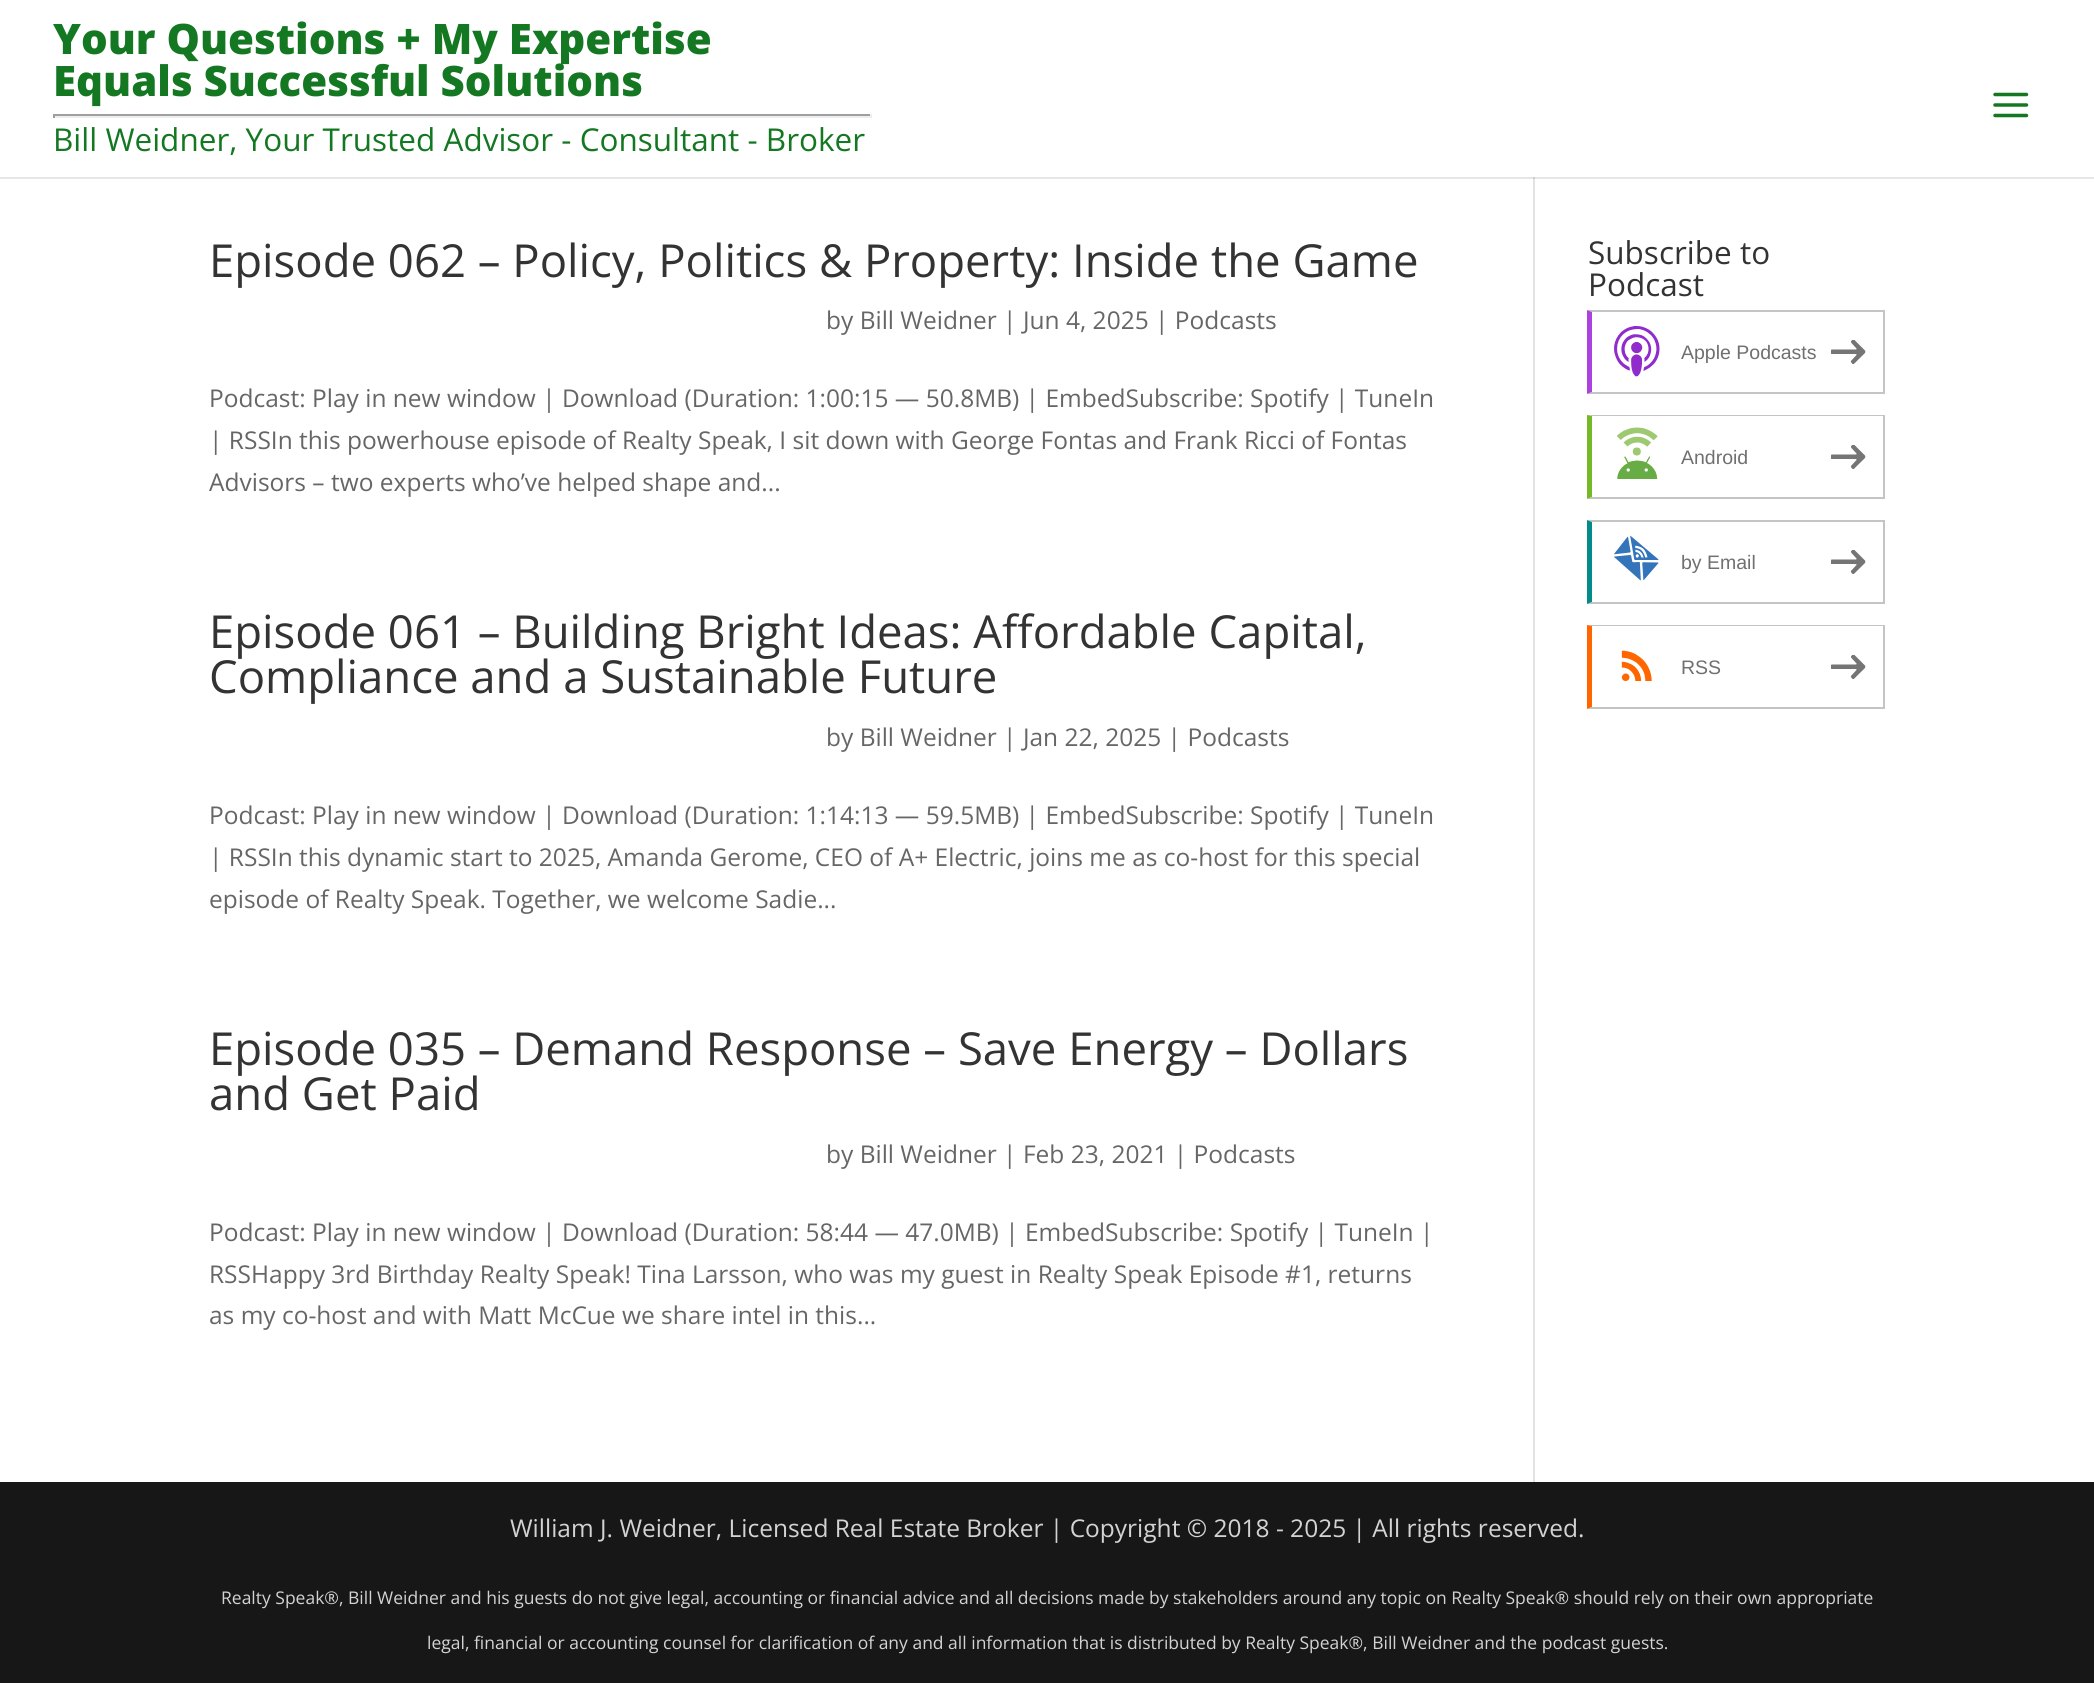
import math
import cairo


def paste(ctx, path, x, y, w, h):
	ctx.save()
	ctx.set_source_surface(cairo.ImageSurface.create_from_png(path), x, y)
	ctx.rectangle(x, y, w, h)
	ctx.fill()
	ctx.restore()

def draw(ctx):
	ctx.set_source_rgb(1, 1, 1)
	ctx.paint()
	ctx.set_source_rgb(0.886, 0.886, 0.886)
	ctx.rectangle(1533, 177, 2, 1305)
	ctx.fill()
	ctx.set_source_rgba(0, 0, 0, 0.1)
	ctx.new_path()
	ctx.move_to(0, 177)
	ctx.line_to(0, 179)
	ctx.line_to(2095, 179)
	ctx.line_to(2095, 2)
	ctx.line_to(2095, 177)
	ctx.close_path()
	ctx.fill()
	ctx.select_font_face('Open Sans ExtraBold')
	ctx.set_font_size(42)
	ctx.set_source_rgb(0.082, 0.467, 0.129)
	ctx.move_to(53, 54)
	ctx.show_text('Your Questions + My Expertise')
	ctx.move_to(53, 96)
	ctx.show_text('Equals Successful Solutions')
	ctx.set_source_rgb(0.624, 0.624, 0.624)
	ctx.rectangle(53, 114, 819, 2)
	ctx.fill()
	ctx.set_source_rgb(0.933, 0.933, 0.933)
	ctx.rectangle(870, 114, 2, 4)
	ctx.rectangle(53, 116, 819, 2)
	ctx.fill()
	ctx.set_source_rgb(0.624, 0.624, 0.624)
	ctx.rectangle(53, 114, 2, 4)
	ctx.fill()
	ctx.select_font_face('Open Sans')
	ctx.set_font_size(31.5)
	ctx.set_source_rgb(0.082, 0.467, 0.129)
	ctx.move_to(53, 151)
	ctx.show_text('Bill Weidner, Your Trusted Advisor - Consultant - Broker')
	paste(ctx, 'media/1.png', 1993, 92, 36, 26)
	ctx.set_font_size(45.5)
	ctx.set_source_rgb(0.2, 0.2, 0.2)
	ctx.move_to(209, 277)
	ctx.show_text('Episode 062 – Policy, Politics & Property: Inside the Game')
	ctx.set_font_size(24.5)
	ctx.set_source_rgb(0.4, 0.4, 0.4)
	for x, y, s in [
		(826, 329, 'by Bill Weidner | Jun 4, 2025 | Podcasts'),
		(209, 407, 'Podcast: Play in new window | Download (Duration: 1:00:15 — 50.8MB) | EmbedSubscribe: Spotify | TuneIn'),
		(209, 449, '| RSSIn this powerhouse episode of Realty Speak, I sit down with George Fontas and Frank Ricci of Fontas'),
		(209, 491, 'Advisors – two experts who’ve helped shape and...'),
	]:
		ctx.move_to(x, y)
		ctx.show_text(s)
	ctx.set_font_size(45.5)
	ctx.set_source_rgb(0.2, 0.2, 0.2)
	ctx.move_to(209, 648)
	ctx.show_text('Episode 061 – Building Bright Ideas: Affordable Capital,')
	ctx.move_to(209, 693)
	ctx.show_text('Compliance and a Sustainable Future')
	ctx.set_font_size(24.5)
	ctx.set_source_rgb(0.4, 0.4, 0.4)
	for x, y, s in [
		(826, 746, 'by Bill Weidner | Jan 22, 2025 | Podcasts'),
		(209, 824, 'Podcast: Play in new window | Download (Duration: 1:14:13 — 59.5MB) | EmbedSubscribe: Spotify | TuneIn'),
		(209, 866, '| RSSIn this dynamic start to 2025, Amanda Gerome, CEO of A+ Electric, joins me as co-host for this special'),
		(209, 908, 'episode of Realty Speak. Together, we welcome Sadie...'),
	]:
		ctx.move_to(x, y)
		ctx.show_text(s)
	ctx.set_font_size(45.5)
	ctx.set_source_rgb(0.2, 0.2, 0.2)
	ctx.move_to(209, 1065)
	ctx.show_text('Episode 035 – Demand Response – Save Energy – Dollars')
	ctx.move_to(209, 1110)
	ctx.show_text('and Get Paid')
	ctx.set_font_size(24.5)
	ctx.set_source_rgb(0.4, 0.4, 0.4)
	for x, y, s in [
		(826, 1163, 'by Bill Weidner | Feb 23, 2021 | Podcasts'),
		(209, 1241, 'Podcast: Play in new window | Download (Duration: 58:44 — 47.0MB) | EmbedSubscribe: Spotify | TuneIn |'),
		(209, 1283, 'RSSHappy 3rd Birthday Realty Speak! Tina Larsson, who was my guest in Realty Speak Episode #1, returns'),
		(209, 1324, 'as my co-host and with Matt McCue we share intel in this...'),
	]:
		ctx.move_to(x, y)
		ctx.show_text(s)
	ctx.set_font_size(31.5)
	ctx.set_source_rgb(0.2, 0.2, 0.2)
	ctx.move_to(1588, 264)
	ctx.show_text('Subscribe to')
	ctx.move_to(1588, 296)
	ctx.show_text('Podcast')
	ctx.set_source_rgb(0.769, 0.769, 0.769)
	ctx.new_path()
	ctx.move_to(1587, 310)
	ctx.line_to(1885, 310)
	ctx.line_to(1883, 312)
	ctx.line_to(1592, 312)
	ctx.close_path()
	ctx.fill()
	ctx.rectangle(1883, 310, 2, 84)
	ctx.fill()
	ctx.new_path()
	ctx.move_to(1885, 394)
	ctx.line_to(1587, 394)
	ctx.line_to(1592, 392)
	ctx.line_to(1883, 392)
	ctx.close_path()
	ctx.fill()
	ctx.set_source_rgb(0.671, 0.259, 0.875)
	ctx.new_path()
	ctx.move_to(1587, 394)
	ctx.line_to(1587, 310)
	ctx.line_to(1592, 312)
	ctx.line_to(1592, 392)
	ctx.close_path()
	ctx.fill()
	paste(ctx, 'media/2.png', 1614, 326, 46, 51)
	ctx.select_font_face('Liberation Sans')
	ctx.set_font_size(19.5)
	ctx.set_source_rgb(0.439, 0.439, 0.439)
	ctx.move_to(1681, 359)
	ctx.show_text('Apple Podcasts')
	paste(ctx, 'media/3.png', 1831, 340, 35, 24)
	ctx.set_source_rgb(0.769, 0.769, 0.769)
	ctx.new_path()
	ctx.move_to(1587, 415)
	ctx.line_to(1885, 415)
	ctx.line_to(1883, 416)
	ctx.line_to(1592, 416)
	ctx.close_path()
	ctx.fill()
	ctx.rectangle(1883, 415, 2, 84)
	ctx.fill()
	ctx.new_path()
	ctx.move_to(1885, 499)
	ctx.line_to(1587, 499)
	ctx.line_to(1592, 497)
	ctx.line_to(1883, 497)
	ctx.close_path()
	ctx.fill()
	ctx.set_source_rgb(0.459, 0.729, 0.149)
	ctx.new_path()
	ctx.move_to(1587, 499)
	ctx.line_to(1587, 415)
	ctx.line_to(1592, 416)
	ctx.line_to(1592, 497)
	ctx.close_path()
	ctx.fill()
	paste(ctx, 'media/4.png', 1616, 427, 42, 52)
	ctx.set_source_rgb(0.439, 0.439, 0.439)
	ctx.move_to(1681, 464)
	ctx.show_text('Android')
	paste(ctx, 'media/5.png', 1831, 445, 35, 24)
	ctx.set_source_rgb(0.769, 0.769, 0.769)
	ctx.new_path()
	ctx.move_to(1587, 520)
	ctx.line_to(1885, 520)
	ctx.line_to(1883, 522)
	ctx.line_to(1592, 522)
	ctx.close_path()
	ctx.fill()
	ctx.rectangle(1883, 520, 2, 84)
	ctx.fill()
	ctx.new_path()
	ctx.move_to(1885, 604)
	ctx.line_to(1587, 604)
	ctx.line_to(1592, 602)
	ctx.line_to(1883, 602)
	ctx.close_path()
	ctx.fill()
	ctx.set_source_rgb(0.004, 0.549, 0.545)
	ctx.new_path()
	ctx.move_to(1587, 604)
	ctx.line_to(1587, 520)
	ctx.line_to(1592, 522)
	ctx.line_to(1592, 602)
	ctx.close_path()
	ctx.fill()
	paste(ctx, 'media/6.png', 1614, 535, 45, 46)
	ctx.set_source_rgb(0.439, 0.439, 0.439)
	ctx.move_to(1681, 569)
	ctx.show_text('by Email')
	paste(ctx, 'media/3.png', 1831, 550, 35, 24)
	ctx.set_source_rgb(0.769, 0.769, 0.769)
	ctx.new_path()
	ctx.move_to(1587, 625)
	ctx.line_to(1885, 625)
	ctx.line_to(1883, 626)
	ctx.line_to(1592, 626)
	ctx.close_path()
	ctx.fill()
	ctx.rectangle(1883, 625, 2, 84)
	ctx.fill()
	ctx.new_path()
	ctx.move_to(1885, 709)
	ctx.line_to(1587, 709)
	ctx.line_to(1592, 707)
	ctx.line_to(1883, 707)
	ctx.close_path()
	ctx.fill()
	ctx.set_source_rgb(1, 0.4, 0)
	ctx.new_path()
	ctx.move_to(1587, 709)
	ctx.line_to(1587, 625)
	ctx.line_to(1592, 626)
	ctx.line_to(1592, 707)
	ctx.close_path()
	ctx.fill()
	paste(ctx, 'media/7.png', 1621, 650, 31, 31)
	ctx.set_source_rgb(0.439, 0.439, 0.439)
	ctx.move_to(1681, 674)
	ctx.show_text('RSS')
	paste(ctx, 'media/3.png', 1831, 655, 35, 24)
	ctx.set_source_rgb(0.09, 0.09, 0.09)
	ctx.rectangle(0, 1482, 2094, 201)
	ctx.fill()
	ctx.select_font_face('Open Sans')
	ctx.set_font_size(24.5)
	ctx.set_source_rgb(0.827, 0.827, 0.827)
	ctx.move_to(510, 1537)
	ctx.show_text('William J. Weidner, Licensed Real Estate Broker | Copyright © 2018 - 2025 | All rights reserved.')
	ctx.set_font_size(17.5)
	ctx.move_to(221, 1604)
	ctx.show_text('Realty Speak®, Bill Weidner and his guests do not give legal, accounting or financial advice and all decisions made by stakeholders around any topic on Realty Speak® should rely on their own appropriate')
	ctx.move_to(427, 1649)
	ctx.show_text('legal, financial or accounting counsel for clarification of any and all information that is distributed by Realty Speak®, Bill Weidner and the podcast guests.')


surface = cairo.ImageSurface(cairo.FORMAT_RGB24, 2094, 1683)
ctx = cairo.Context(surface)
options = cairo.FontOptions()
options.set_hint_metrics(cairo.HINT_METRICS_OFF)
options.set_hint_style(cairo.HINT_STYLE_NONE)
ctx.set_font_options(options)
ctx.set_miter_limit(4)
draw(ctx)
surface.write_to_png('image.png')
